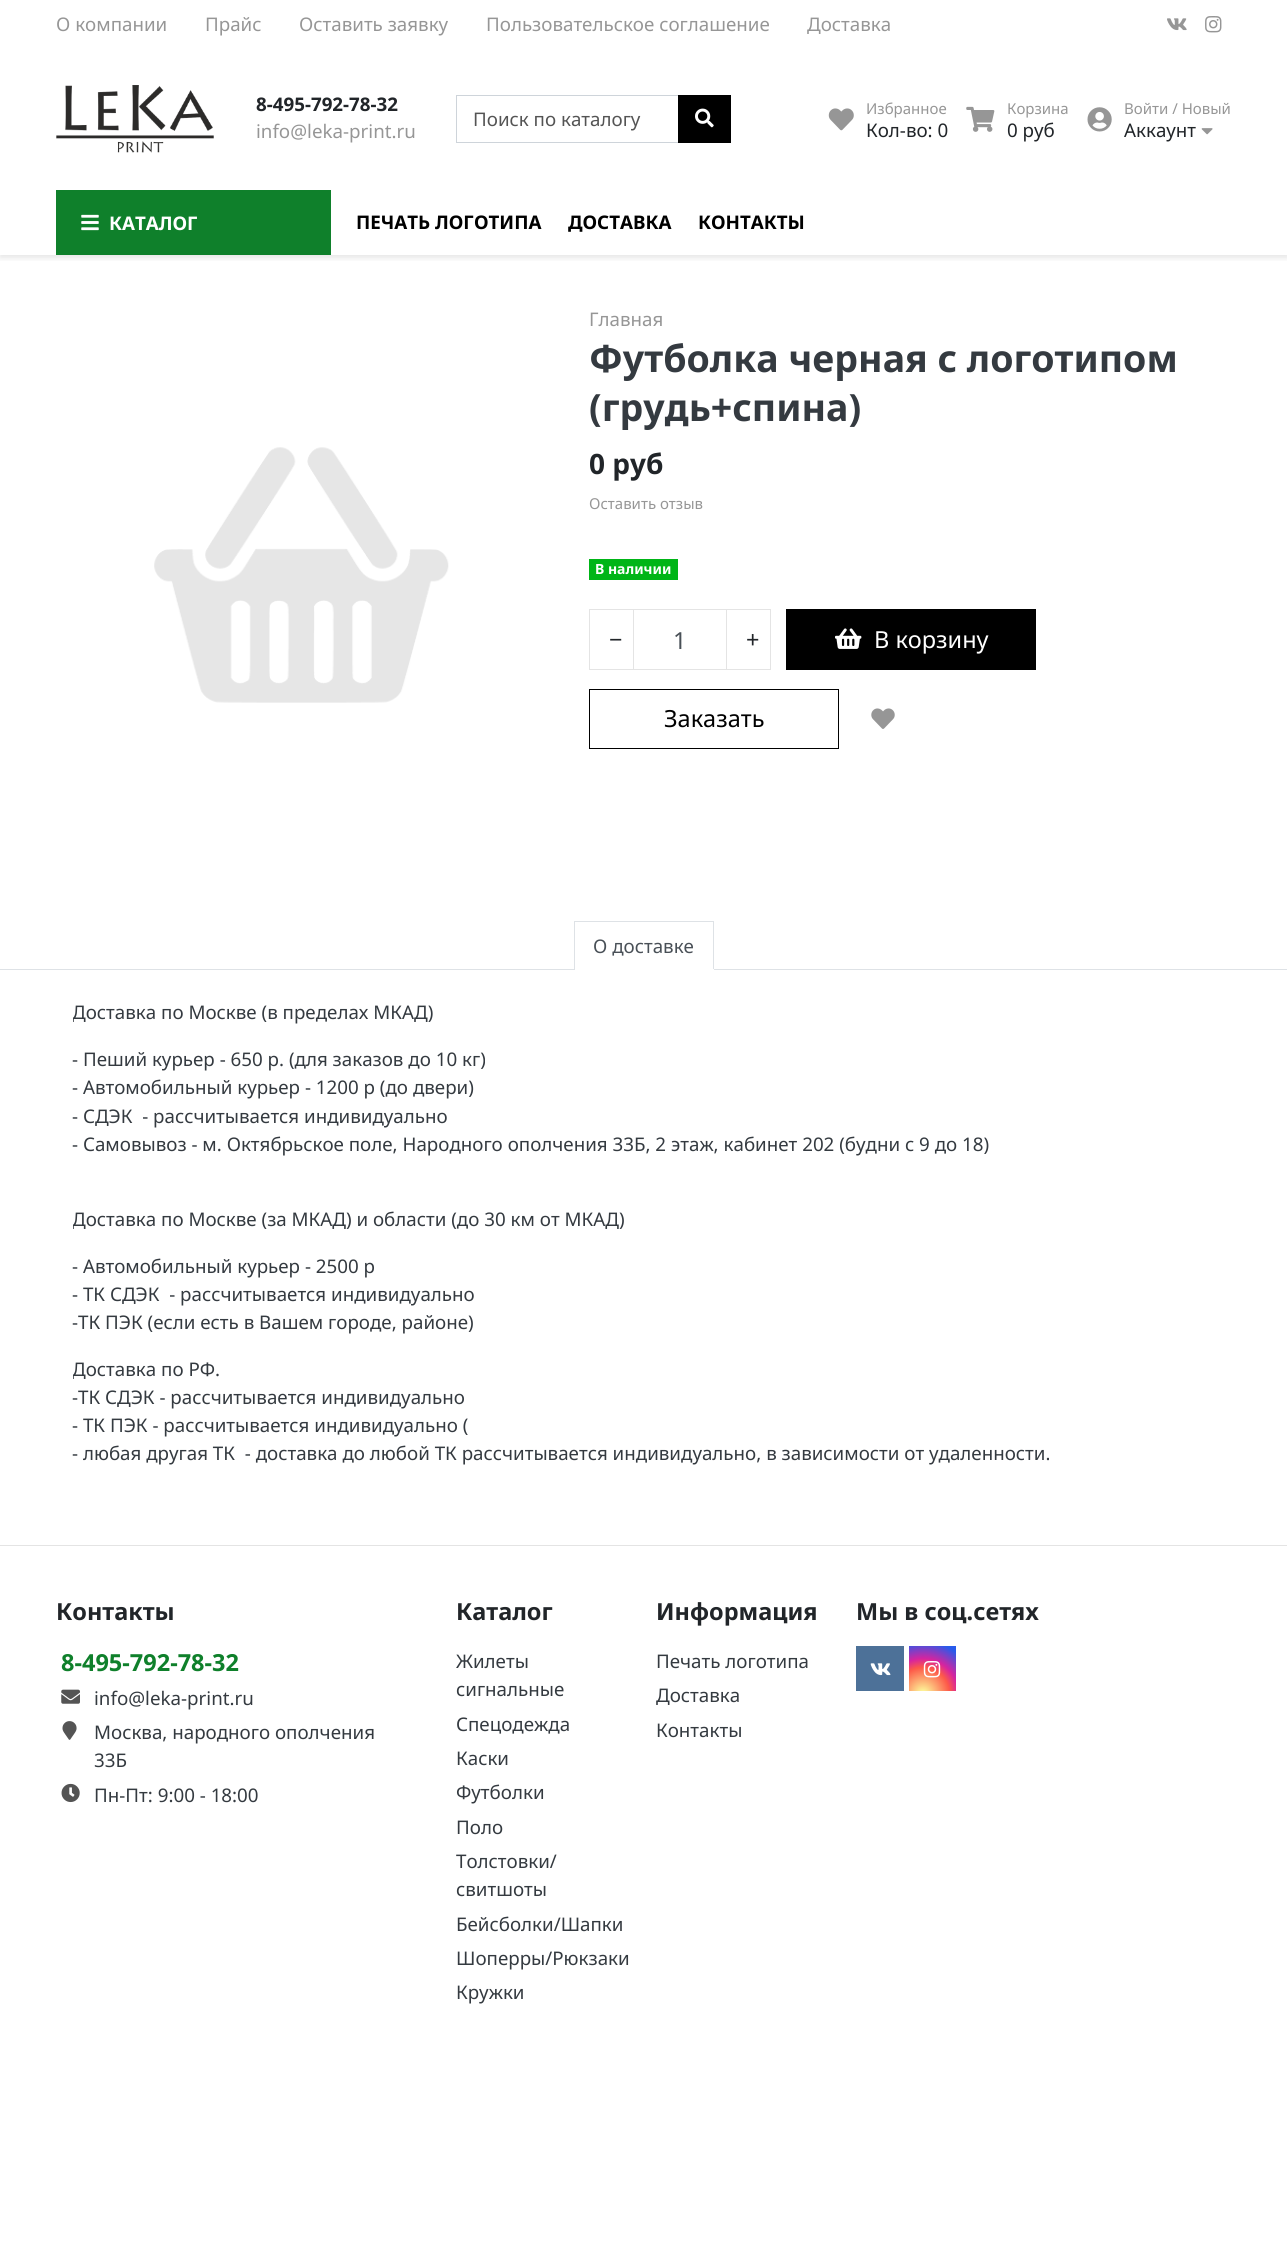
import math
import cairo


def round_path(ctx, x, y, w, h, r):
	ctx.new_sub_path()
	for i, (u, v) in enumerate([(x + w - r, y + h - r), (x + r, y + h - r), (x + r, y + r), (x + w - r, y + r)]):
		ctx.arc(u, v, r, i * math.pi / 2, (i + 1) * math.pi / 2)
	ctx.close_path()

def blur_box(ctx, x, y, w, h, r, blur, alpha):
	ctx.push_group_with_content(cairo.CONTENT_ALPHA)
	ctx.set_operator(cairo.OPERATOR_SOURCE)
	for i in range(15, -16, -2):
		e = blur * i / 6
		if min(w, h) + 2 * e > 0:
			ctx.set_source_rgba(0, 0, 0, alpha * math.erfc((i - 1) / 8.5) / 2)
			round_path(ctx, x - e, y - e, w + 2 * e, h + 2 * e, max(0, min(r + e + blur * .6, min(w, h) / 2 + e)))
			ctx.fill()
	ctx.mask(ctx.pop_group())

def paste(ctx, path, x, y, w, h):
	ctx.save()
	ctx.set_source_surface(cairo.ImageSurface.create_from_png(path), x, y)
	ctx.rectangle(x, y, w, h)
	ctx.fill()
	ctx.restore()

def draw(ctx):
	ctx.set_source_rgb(1, 1, 1)
	ctx.paint()
	ctx.select_font_face('Noto Sans')
	ctx.set_font_size(18.75)
	ctx.set_source_rgb(0.588, 0.588, 0.588)
	for x, y, s in [
		(56, 31, 'О компании'),
		(205, 31, 'Прайс'),
		(299, 31, 'Оставить заявку'),
		(486, 31, 'Пользовательское соглашение'),
		(807, 31, 'Доставка'),
	]:
		ctx.move_to(x, y)
		ctx.show_text(s)
	paste(ctx, 'media/1.png', 1167, 18, 20, 13)
	paste(ctx, 'media/2.png', 1205, 16, 17, 17)
	paste(ctx, 'media/3.png', 56, 85, 158, 68)
	ctx.select_font_face('Noto Sans', cairo.FONT_SLANT_NORMAL, cairo.FONT_WEIGHT_BOLD)
	ctx.set_source_rgb(0.129, 0.145, 0.161)
	ctx.move_to(256, 111)
	ctx.show_text('8-495-792-78-32')
	ctx.select_font_face('Noto Sans')
	ctx.set_source_rgb(0.588, 0.588, 0.588)
	ctx.move_to(256, 138)
	ctx.show_text('info@leka-print.ru')
	ctx.rectangle(456.5, 95.5, 222, 47)
	ctx.set_source_rgb(0.808, 0.831, 0.855)
	ctx.set_line_width(1)
	ctx.stroke()
	ctx.set_source_rgb(0.329, 0.329, 0.329)
	ctx.move_to(473, 126)
	ctx.show_text('Поиск по каталогу')
	ctx.set_source_rgb(0, 0, 0)
	ctx.rectangle(678, 95, 53, 48)
	ctx.fill()
	paste(ctx, 'media/4.png', 695, 108, 19, 20)
	paste(ctx, 'media/5.png', 828, 108, 26, 23)
	ctx.set_font_size(15)
	ctx.set_source_rgb(0.588, 0.588, 0.588)
	ctx.move_to(866, 114)
	ctx.show_text('Избранное')
	ctx.set_font_size(18.75)
	ctx.set_source_rgb(0.129, 0.145, 0.161)
	ctx.move_to(866, 137)
	ctx.show_text('Кол-во: 0')
	paste(ctx, 'media/6.png', 966, 106, 29, 26)
	ctx.set_font_size(15)
	ctx.set_source_rgb(0.588, 0.588, 0.588)
	ctx.move_to(1007, 114)
	ctx.show_text('Корзина')
	ctx.set_font_size(18.75)
	ctx.set_source_rgb(0.129, 0.145, 0.161)
	ctx.move_to(1007, 137)
	ctx.show_text('0 руб')
	paste(ctx, 'media/7.png', 1087, 107, 25, 25)
	ctx.set_font_size(15)
	ctx.set_source_rgb(0.588, 0.588, 0.588)
	ctx.move_to(1124, 114)
	ctx.show_text('Войти / Новый')
	ctx.set_font_size(18.75)
	ctx.set_source_rgb(0.129, 0.145, 0.161)
	ctx.move_to(1124, 137)
	ctx.show_text('Аккаунт')
	paste(ctx, 'media/8.png', 1201, 128, 12, 7)
	ctx.save()
	ctx.rectangle(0, 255, 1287, 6)
	ctx.clip()
	ctx.set_source_rgb(0, 0, 0)
	blur_box(ctx, 0, 193, 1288, 65, 0, 3, 0.1)
	ctx.restore()
	ctx.set_source_rgb(0.059, 0.502, 0.169)
	ctx.rectangle(56, 190, 275, 65)
	ctx.fill()
	paste(ctx, 'media/9.png', 81, 214, 18, 17)
	ctx.select_font_face('Noto Sans', cairo.FONT_SLANT_NORMAL, cairo.FONT_WEIGHT_BOLD)
	ctx.set_source_rgb(1, 1, 1)
	ctx.move_to(109, 230)
	ctx.show_text('КАТАЛОГ')
	ctx.set_source_rgb(0, 0, 0)
	for x, y, s in [
		(356, 229, 'ПЕЧАТЬ ЛОГОТИПА'),
		(568, 229, 'ДОСТАВКА'),
		(698, 229, 'КОНТАКТЫ'),
	]:
		ctx.move_to(x, y)
		ctx.show_text(s)
	paste(ctx, 'media/10.png', 154, 447, 295, 256)
	ctx.select_font_face('Noto Sans')
	ctx.set_source_rgb(0.588, 0.588, 0.588)
	ctx.move_to(589, 326)
	ctx.show_text('Главная')
	ctx.select_font_face('Noto Sans', cairo.FONT_SLANT_NORMAL, cairo.FONT_WEIGHT_BOLD)
	ctx.set_font_size(37.5)
	ctx.set_source_rgb(0.204, 0.227, 0.251)
	ctx.move_to(589, 372)
	ctx.show_text('Футболка черная с логотипом')
	ctx.move_to(589, 421)
	ctx.show_text('(грудь+спина)')
	ctx.set_font_size(28)
	ctx.set_source_rgb(0.129, 0.145, 0.161)
	ctx.move_to(589, 474)
	ctx.show_text('0 руб')
	ctx.select_font_face('Noto Sans')
	ctx.set_font_size(15)
	ctx.set_source_rgb(0.588, 0.588, 0.588)
	ctx.move_to(589, 509)
	ctx.show_text('Оставить отзыв')
	ctx.set_source_rgb(0, 0.71, 0.09)
	ctx.rectangle(589, 559, 89, 21)
	ctx.fill()
	ctx.select_font_face('Noto Sans', cairo.FONT_SLANT_NORMAL, cairo.FONT_WEIGHT_BOLD)
	ctx.set_font_size(14)
	ctx.set_source_rgb(1, 1, 1)
	ctx.move_to(595, 574)
	ctx.show_text('В наличии')
	ctx.rectangle(633.5, 609.5, 94, 60)
	ctx.set_source_rgb(0.894, 0.894, 0.894)
	ctx.stroke()
	ctx.rectangle(589.5, 609.5, 44, 60)
	ctx.stroke()
	ctx.select_font_face('Noto Sans')
	ctx.set_font_size(23.5)
	ctx.set_source_rgb(0.129, 0.145, 0.161)
	ctx.move_to(609, 648)
	ctx.show_text('−')
	ctx.set_source_rgb(0.286, 0.314, 0.341)
	ctx.move_to(673, 649)
	ctx.show_text('1')
	ctx.set_source_rgb(1, 1, 1)
	ctx.rectangle(727, 610, 1, 59)
	ctx.fill()
	ctx.rectangle(726.5, 609.5, 44, 60)
	ctx.set_source_rgb(0.894, 0.894, 0.894)
	ctx.stroke()
	ctx.set_source_rgb(0.129, 0.145, 0.161)
	ctx.move_to(746, 648)
	ctx.show_text('+')
	ctx.set_source_rgb(0, 0, 0)
	ctx.rectangle(786, 609, 250, 61)
	ctx.fill()
	paste(ctx, 'media/11.png', 835, 628, 27, 21)
	ctx.set_source_rgb(1, 1, 1)
	ctx.move_to(874, 648)
	ctx.show_text('В корзину')
	ctx.rectangle(589.5, 689.5, 249, 59)
	ctx.set_source_rgb(0, 0, 0)
	ctx.stroke()
	ctx.move_to(664, 727)
	ctx.show_text('Заказать')
	paste(ctx, 'media/12.png', 871, 708, 24, 21)
	ctx.set_source_rgb(0.871, 0.886, 0.902)
	ctx.rectangle(0, 969, 1287, 1)
	ctx.rectangle(574, 921, 140, 1)
	ctx.rectangle(713, 921, 1, 49)
	ctx.fill()
	ctx.set_source_rgb(1, 1, 1)
	ctx.rectangle(574, 969, 140, 1)
	ctx.fill()
	ctx.set_source_rgb(0.871, 0.886, 0.902)
	ctx.rectangle(574, 921, 1, 49)
	ctx.fill()
	ctx.set_font_size(18.75)
	ctx.set_source_rgb(0.286, 0.314, 0.341)
	ctx.move_to(593, 953)
	ctx.show_text('О доставке')
	ctx.save()
	ctx.rectangle(73, 999, 1143, 469)
	ctx.clip()
	ctx.set_source_rgb(0.204, 0.227, 0.251)
	ctx.move_to(72, 1019)
	ctx.show_text('Доставка по Москве (в пределах МКАД)')
	ctx.restore()
	ctx.set_source_rgb(0.204, 0.227, 0.251)
	for x, y, s in [
		(72, 1066, '- Пеший курьер - 650 р. (для заказов до 10 кг)'),
		(72, 1094, '- Автомобильный курьер - 1200 р (до двери)'),
		(72, 1123, '- СДЭК  - рассчитывается индивидуально'),
		(72, 1151, '- Самовывоз - м. Октябрьское поле, Народного ополчения 33Б, 2 этаж, кабинет 202 (будни с 9 до 18)'),
	]:
		ctx.move_to(x, y)
		ctx.show_text(s)
	ctx.save()
	ctx.rectangle(73, 999, 1143, 469)
	ctx.clip()
	ctx.move_to(72, 1226)
	ctx.show_text('Доставка по Москве (за МКАД) и области (до 30 км от МКАД)')
	ctx.restore()
	for x, y, s in [
		(72, 1273, '- Автомобильный курьер - 2500 р'),
		(72, 1301, '- ТК СДЭК  - рассчитывается индивидуально'),
		(72, 1329, '-ТК ПЭК (если есть в Вашем городе, районе)'),
	]:
		ctx.move_to(x, y)
		ctx.show_text(s)
	ctx.save()
	ctx.rectangle(73, 999, 1143, 469)
	ctx.clip()
	ctx.move_to(72, 1376)
	ctx.show_text('Доставка по РФ.')
	ctx.restore()
	for x, y, s in [
		(72, 1404, '-ТК СДЭК - рассчитывается индивидуально'),
		(72, 1432, '- ТК ПЭК - рассчитывается индивидуально ('),
		(72, 1460, '- любая другая ТК  - доставка до любой ТК рассчитывается индивидуально, в зависимости от удаленности.'),
	]:
		ctx.move_to(x, y)
		ctx.show_text(s)
	ctx.set_source_rgb(0.894, 0.894, 0.894)
	ctx.rectangle(0, 1545, 1287, 1)
	ctx.fill()
	ctx.select_font_face('Noto Sans', cairo.FONT_SLANT_NORMAL, cairo.FONT_WEIGHT_BOLD)
	ctx.set_font_size(23.5)
	ctx.set_source_rgb(0.129, 0.145, 0.161)
	ctx.move_to(56, 1620)
	ctx.show_text('Контакты')
	ctx.set_source_rgb(0.059, 0.502, 0.169)
	ctx.move_to(61, 1671)
	ctx.show_text('8-495-792-78-32')
	paste(ctx, 'media/13.png', 61, 1689, 19, 15)
	ctx.select_font_face('Noto Sans')
	ctx.set_font_size(18.75)
	ctx.set_source_rgb(0.204, 0.227, 0.251)
	ctx.move_to(94, 1705)
	ctx.show_text('info@leka-print.ru')
	paste(ctx, 'media/14.png', 62, 1721, 15, 19)
	ctx.move_to(94, 1739)
	ctx.show_text('Москва, народного ополчения')
	ctx.move_to(94, 1767)
	ctx.show_text('33Б')
	paste(ctx, 'media/15.png', 61, 1783, 19, 20)
	ctx.move_to(94, 1802)
	ctx.show_text('Пн-Пт: 9:00 - 18:00')
	ctx.select_font_face('Noto Sans', cairo.FONT_SLANT_NORMAL, cairo.FONT_WEIGHT_BOLD)
	ctx.set_font_size(23.5)
	ctx.set_source_rgb(0.129, 0.145, 0.161)
	ctx.move_to(456, 1620)
	ctx.show_text('Каталог')
	ctx.select_font_face('Noto Sans')
	ctx.set_font_size(18.75)
	ctx.set_source_rgb(0.204, 0.227, 0.251)
	for x, y, s in [
		(456, 1668, 'Жилеты'),
		(456, 1696, 'сигнальные'),
		(456, 1731, 'Спецодежда'),
		(456, 1765, 'Каски'),
		(456, 1799, 'Футболки'),
		(456, 1834, 'Поло'),
		(456, 1868, 'Толстовки/'),
		(456, 1896, 'свитшоты'),
		(456, 1931, 'Бейсболки/Шапки'),
		(456, 1965, 'Шоперры/Рюкзаки'),
		(456, 1999, 'Кружки'),
	]:
		ctx.move_to(x, y)
		ctx.show_text(s)
	ctx.select_font_face('Noto Sans', cairo.FONT_SLANT_NORMAL, cairo.FONT_WEIGHT_BOLD)
	ctx.set_font_size(23.5)
	ctx.set_source_rgb(0.129, 0.145, 0.161)
	ctx.move_to(656, 1620)
	ctx.show_text('Информация')
	ctx.select_font_face('Noto Sans')
	ctx.set_font_size(18.75)
	ctx.set_source_rgb(0.204, 0.227, 0.251)
	for x, y, s in [
		(656, 1668, 'Печать логотипа'),
		(656, 1702, 'Доставка'),
		(656, 1737, 'Контакты'),
	]:
		ctx.move_to(x, y)
		ctx.show_text(s)
	ctx.select_font_face('Noto Sans', cairo.FONT_SLANT_NORMAL, cairo.FONT_WEIGHT_BOLD)
	ctx.set_font_size(23.5)
	ctx.set_source_rgb(0.129, 0.145, 0.161)
	ctx.move_to(856, 1620)
	ctx.show_text('Мы в соц.сетях')
	ctx.set_source_rgb(0.302, 0.443, 0.596)
	ctx.rectangle(856, 1646, 48, 45)
	ctx.fill()
	paste(ctx, 'media/16.png', 870, 1663, 21, 13)
	gradient = cairo.RadialGradient(923, 1694, 0, 923, 1694, 59)
	gradient.add_color_stop_rgba(0, 0.992, 0.957, 0.592, 1)
	gradient.add_color_stop_rgba(0.05, 0.992, 0.957, 0.592, 1)
	gradient.add_color_stop_rgba(0.45, 0.992, 0.349, 0.286, 1)
	gradient.add_color_stop_rgba(0.6, 0.839, 0.141, 0.624, 1)
	gradient.add_color_stop_rgba(0.9, 0.157, 0.353, 0.922, 1)
	ctx.set_source(gradient)
	ctx.rectangle(909, 1646, 47, 45)
	ctx.fill()
	paste(ctx, 'media/17.png', 923, 1661, 18, 17)


surface = cairo.ImageSurface(cairo.FORMAT_RGB24, 1287, 2254)
ctx = cairo.Context(surface)
options = cairo.FontOptions()
options.set_hint_metrics(cairo.HINT_METRICS_OFF)
options.set_hint_style(cairo.HINT_STYLE_NONE)
ctx.set_font_options(options)
ctx.set_miter_limit(4)
draw(ctx)
surface.write_to_png('image.png')
